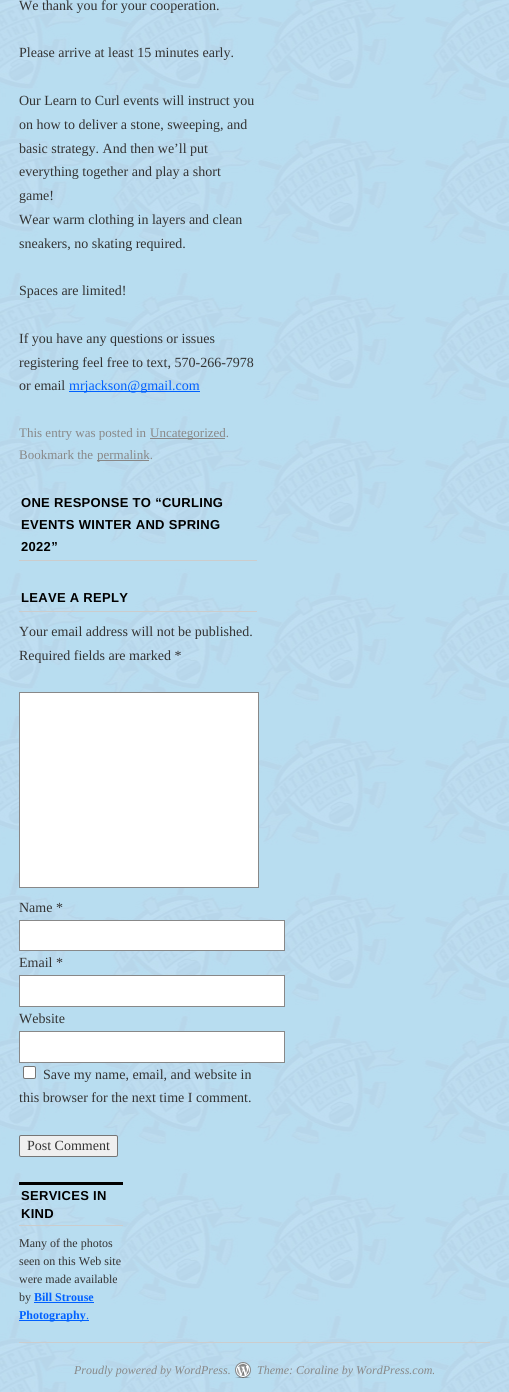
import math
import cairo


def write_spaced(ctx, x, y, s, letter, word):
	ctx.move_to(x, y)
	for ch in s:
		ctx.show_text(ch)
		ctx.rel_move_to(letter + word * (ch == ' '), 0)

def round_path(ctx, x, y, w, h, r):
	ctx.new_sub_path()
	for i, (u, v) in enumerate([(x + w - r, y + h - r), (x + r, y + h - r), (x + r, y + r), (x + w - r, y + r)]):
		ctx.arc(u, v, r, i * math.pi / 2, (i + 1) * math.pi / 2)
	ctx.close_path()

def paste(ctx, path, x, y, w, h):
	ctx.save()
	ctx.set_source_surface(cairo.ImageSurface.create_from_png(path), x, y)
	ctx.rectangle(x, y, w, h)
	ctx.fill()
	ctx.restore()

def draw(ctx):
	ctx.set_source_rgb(1, 1, 1)
	ctx.paint()
	paste(ctx, 'media/1.png', 0, 0, 509, 1392)
	ctx.select_font_face('Liberation Serif')
	ctx.set_font_size(14)
	ctx.set_source_rgb(0.2, 0.2, 0.2)
	for x, y, s in [
		(19, 10, 'We thank you for your cooperation.'),
		(19, 57, 'Please arrive at least 15 minutes early.'),
		(19, 105, 'Our Learn to Curl events will instruct you'),
		(19, 129, 'on how to deliver a stone, sweeping, and'),
		(19, 153, 'basic strategy. And then we’ll put'),
		(19, 176, 'everything together and play a short'),
		(19, 200, 'game!'),
		(19, 224, 'Wear warm clothing in layers and clean'),
		(19, 248, 'sneakers, no skating required.'),
		(19, 295, 'Spaces are limited!'),
		(19, 343, 'If you have any questions or issues'),
		(19, 367, 'registering feel free to text, 570-266-7978'),
		(19, 390, 'or email'),
	]:
		ctx.move_to(x, y)
		ctx.show_text(s)
	ctx.set_source_rgb(0, 0.376, 1)
	ctx.rectangle(69, 391, 131, 1)
	ctx.fill()
	ctx.move_to(69, 390)
	ctx.show_text('mrjackson@gmail.com')
	ctx.set_font_size(13)
	ctx.set_source_rgb(0.533, 0.533, 0.533)
	ctx.move_to(19, 437)
	ctx.show_text('This entry was posted in')
	ctx.rectangle(150, 438, 75, 1)
	ctx.fill()
	ctx.move_to(150, 437)
	ctx.show_text('Uncategorized.')
	ctx.move_to(19, 459)
	ctx.show_text('Bookmark the')
	ctx.rectangle(97, 460, 52, 1)
	ctx.fill()
	ctx.move_to(97, 459)
	ctx.show_text('permalink.')
	ctx.set_source_rgb(0.8, 0.8, 0.8)
	ctx.rectangle(19, 560, 238, 1)
	ctx.fill()
	ctx.select_font_face('Liberation Sans', cairo.FONT_SLANT_NORMAL, cairo.FONT_WEIGHT_BOLD)
	ctx.set_source_rgb(0, 0, 0)
	for x, y, s in [
		(21, 507, 'ONE RESPONSE TO “CURLING'),
		(21, 529, 'EVENTS WINTER AND SPRING'),
		(21, 551, '2022”'),
	]:
		write_spaced(ctx, x, y, s, 0.3, 0)
	ctx.set_source_rgb(0.8, 0.8, 0.8)
	ctx.rectangle(19, 611, 238, 1)
	ctx.fill()
	ctx.set_source_rgb(0, 0, 0)
	write_spaced(ctx, 21, 602, 'LEAVE A REPLY', 0.3, 0)
	ctx.select_font_face('Liberation Serif')
	ctx.set_font_size(14)
	ctx.set_source_rgb(0.2, 0.2, 0.2)
	ctx.move_to(19, 636)
	ctx.show_text('Your email address will not be published.')
	ctx.move_to(19, 660)
	ctx.show_text('Required fields are marked *')
	ctx.set_source_rgb(1, 1, 1)
	ctx.rectangle(19.5, 692.5, 239, 195)
	ctx.fill_preserve()
	ctx.set_source_rgb(0.533, 0.533, 0.533)
	ctx.set_line_width(1)
	ctx.stroke()
	ctx.set_source_rgb(0.2, 0.2, 0.2)
	ctx.move_to(19, 912)
	ctx.show_text('Name *')
	ctx.set_source_rgb(1, 1, 1)
	ctx.rectangle(19.5, 920.5, 265, 30)
	ctx.fill_preserve()
	ctx.set_source_rgb(0.533, 0.533, 0.533)
	ctx.stroke()
	ctx.set_source_rgb(0.2, 0.2, 0.2)
	ctx.move_to(19, 967)
	ctx.show_text('Email *')
	ctx.set_source_rgb(1, 1, 1)
	ctx.rectangle(19.5, 975.5, 265, 31)
	ctx.fill_preserve()
	ctx.set_source_rgb(0.533, 0.533, 0.533)
	ctx.stroke()
	ctx.set_source_rgb(0.2, 0.2, 0.2)
	ctx.move_to(19, 1023)
	ctx.show_text('Website')
	ctx.set_source_rgb(1, 1, 1)
	ctx.rectangle(19.5, 1031.5, 265, 31)
	ctx.fill_preserve()
	ctx.set_source_rgb(0.533, 0.533, 0.533)
	ctx.stroke()
	ctx.set_source_rgb(1, 1, 1)
	round_path(ctx, 23.5, 1066.5, 12, 12, 1.5)
	ctx.fill_preserve()
	ctx.set_source_rgb(0.463, 0.463, 0.463)
	ctx.stroke()
	ctx.set_source_rgb(0.2, 0.2, 0.2)
	ctx.move_to(43, 1079)
	ctx.show_text('Save my name, email, and website in')
	ctx.move_to(19, 1102)
	ctx.show_text('this browser for the next time I comment.')
	ctx.set_source_rgb(0.937, 0.937, 0.937)
	round_path(ctx, 19.5, 1135.5, 98, 21, 1.5)
	ctx.fill_preserve()
	ctx.set_source_rgb(0.463, 0.463, 0.463)
	ctx.stroke()
	ctx.set_source_rgb(0.2, 0.2, 0.2)
	ctx.move_to(27, 1150)
	ctx.show_text('Post Comment')
	ctx.set_source_rgb(0, 0, 0)
	ctx.rectangle(19, 1182, 104, 3)
	ctx.fill()
	ctx.set_source_rgb(0.8, 0.8, 0.8)
	ctx.rectangle(19, 1225, 104, 1)
	ctx.fill()
	ctx.select_font_face('Liberation Sans', cairo.FONT_SLANT_NORMAL, cairo.FONT_WEIGHT_BOLD)
	ctx.set_font_size(13)
	ctx.set_source_rgb(0, 0, 0)
	write_spaced(ctx, 21, 1200, 'SERVICES IN', 0.3, 0)
	write_spaced(ctx, 21, 1218, 'KIND', 0.3, 0)
	ctx.select_font_face('Liberation Serif')
	ctx.set_font_size(12)
	ctx.set_source_rgb(0.2, 0.2, 0.2)
	for x, y, s in [
		(19, 1247, 'Many of the photos'),
		(19, 1265, 'seen on this Web site'),
		(19, 1283, 'were made available'),
		(19, 1301, 'by'),
	]:
		ctx.move_to(x, y)
		ctx.show_text(s)
	ctx.select_font_face('Liberation Serif', cairo.FONT_SLANT_NORMAL, cairo.FONT_WEIGHT_BOLD)
	ctx.set_source_rgb(0, 0.376, 1)
	ctx.move_to(34, 1301)
	ctx.show_text('Bill Strouse')
	ctx.rectangle(34, 1302, 60, 1)
	ctx.fill()
	ctx.rectangle(19, 1320, 70, 1)
	ctx.fill()
	ctx.move_to(19, 1319)
	ctx.show_text('Photography')
	ctx.select_font_face('Liberation Serif')
	ctx.move_to(86, 1319)
	ctx.show_text('.')
	ctx.set_source_rgb(0.8, 0.8, 0.8)
	ctx.rectangle(19, 1342, 471, 1)
	ctx.fill()
	paste(ctx, 'media/2.png', 235, 1362, 16, 16)
	ctx.select_font_face('Liberation Serif', cairo.FONT_SLANT_ITALIC)
	ctx.set_source_rgb(0.533, 0.533, 0.533)
	ctx.move_to(74, 1374)
	ctx.show_text('Proudly powered by WordPress.')
	ctx.move_to(257, 1374)
	ctx.show_text('Theme: Coraline by WordPress.com.')


surface = cairo.ImageSurface(cairo.FORMAT_RGB24, 509, 1392)
ctx = cairo.Context(surface)
options = cairo.FontOptions()
options.set_hint_metrics(cairo.HINT_METRICS_OFF)
options.set_hint_style(cairo.HINT_STYLE_NONE)
ctx.set_font_options(options)
ctx.set_miter_limit(4)
draw(ctx)
surface.write_to_png('image.png')
